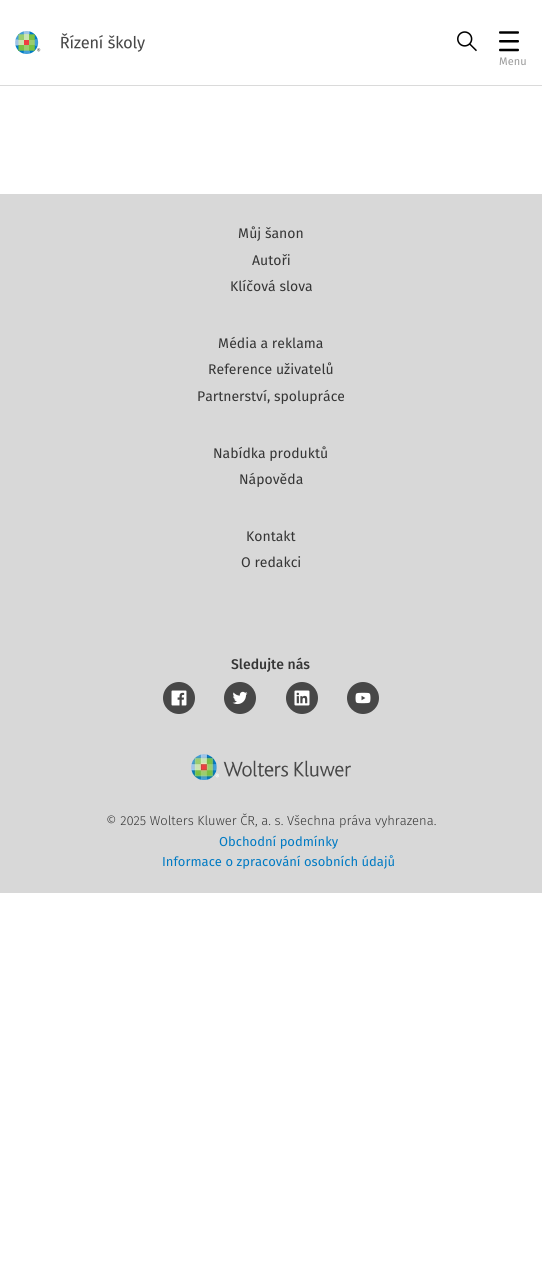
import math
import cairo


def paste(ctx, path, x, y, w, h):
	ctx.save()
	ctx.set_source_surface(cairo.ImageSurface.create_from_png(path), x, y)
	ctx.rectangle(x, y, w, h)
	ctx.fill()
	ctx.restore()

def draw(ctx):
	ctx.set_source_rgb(1, 1, 1)
	ctx.paint()
	ctx.set_source_rgb(0.855, 0.855, 0.855)
	ctx.rectangle(0, 85, 542, 1)
	ctx.fill()
	paste(ctx, 'media/1.png', 15, 31, 130, 23)
	paste(ctx, 'media/2.png', 457, 31, 20, 21)
	paste(ctx, 'media/3.png', 499, 31, 20, 21)
	ctx.select_font_face('Fira Sans')
	ctx.set_font_size(11)
	ctx.set_source_rgb(0.608, 0.608, 0.608)
	ctx.move_to(499, 65)
	ctx.show_text('Menu')
	ctx.set_source_rgb(0.847, 0.847, 0.847)
	ctx.rectangle(0, 194, 542, 699)
	ctx.fill()
	ctx.set_font_size(14)
	ctx.set_source_rgb(0.208, 0.208, 0.208)
	for x, y, s in [
		(238, 238, 'Můj šanon'),
		(252, 265, 'Autoři'),
		(230, 291, 'Klíčová slova'),
		(218, 348, 'Média a reklama'),
		(208, 374, 'Reference uživatelů'),
		(197, 401, 'Partnerství, spolupráce'),
		(213, 458, 'Nabídka produktů'),
		(239, 484, 'Nápověda'),
		(246, 541, 'Kontakt'),
		(241, 567, 'O redakci'),
	]:
		ctx.move_to(x, y)
		ctx.show_text(s)
	ctx.select_font_face('Fira Sans Medium')
	ctx.move_to(231, 669)
	ctx.show_text('Sledujte nás')
	ctx.set_source_rgb(0.278, 0.278, 0.278)
	ctx.new_path()
	ctx.arc(179, 698, 16, 0, 2 * math.pi)
	ctx.fill()
	paste(ctx, 'media/4.png', 171, 690, 16, 16)
	ctx.arc(240, 698, 16, 0, 2 * math.pi)
	ctx.fill()
	paste(ctx, 'media/5.png', 232, 691, 16, 14)
	ctx.arc(302, 698, 16, 0, 2 * math.pi)
	ctx.fill()
	paste(ctx, 'media/6.png', 294, 690, 16, 16)
	ctx.arc(363, 698, 16, 0, 2 * math.pi)
	ctx.fill()
	paste(ctx, 'media/7.png', 355, 692, 16, 12)
	paste(ctx, 'media/8.png', 191, 754, 160, 26)
	ctx.select_font_face('Fira Sans Light')
	ctx.set_font_size(13)
	ctx.set_source_rgb(0.208, 0.208, 0.208)
	ctx.move_to(106, 825)
	ctx.show_text('© 2025 Wolters Kluwer ČR, a. s. Všechna práva vyhrazena.')
	ctx.select_font_face('Fira Sans')
	ctx.set_source_rgb(0, 0.478, 0.765)
	ctx.move_to(219, 846)
	ctx.show_text('Obchodní podmínky')
	ctx.move_to(162, 866)
	ctx.show_text('Informace o zpracování osobních údajů')


surface = cairo.ImageSurface(cairo.FORMAT_RGB24, 542, 1276)
ctx = cairo.Context(surface)
options = cairo.FontOptions()
options.set_hint_metrics(cairo.HINT_METRICS_OFF)
options.set_hint_style(cairo.HINT_STYLE_NONE)
ctx.set_font_options(options)
ctx.set_miter_limit(4)
draw(ctx)
surface.write_to_png('image.png')
